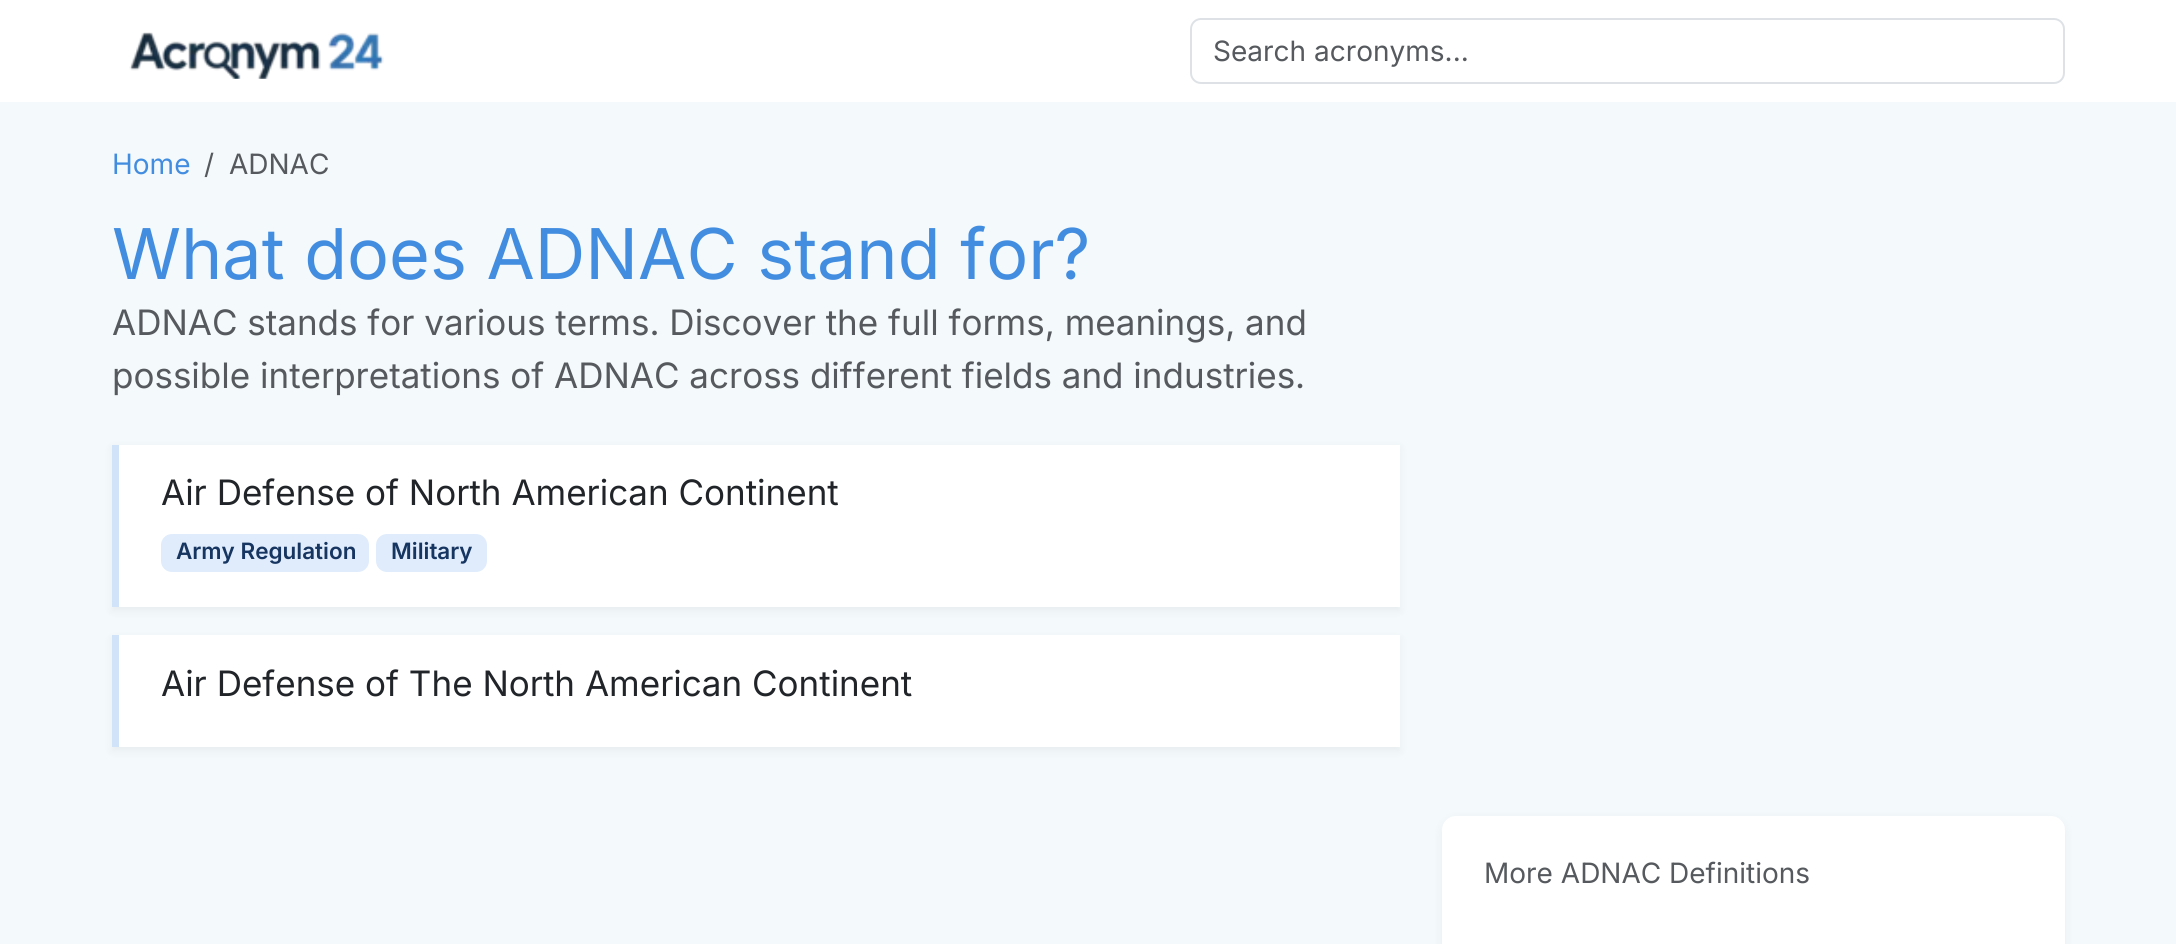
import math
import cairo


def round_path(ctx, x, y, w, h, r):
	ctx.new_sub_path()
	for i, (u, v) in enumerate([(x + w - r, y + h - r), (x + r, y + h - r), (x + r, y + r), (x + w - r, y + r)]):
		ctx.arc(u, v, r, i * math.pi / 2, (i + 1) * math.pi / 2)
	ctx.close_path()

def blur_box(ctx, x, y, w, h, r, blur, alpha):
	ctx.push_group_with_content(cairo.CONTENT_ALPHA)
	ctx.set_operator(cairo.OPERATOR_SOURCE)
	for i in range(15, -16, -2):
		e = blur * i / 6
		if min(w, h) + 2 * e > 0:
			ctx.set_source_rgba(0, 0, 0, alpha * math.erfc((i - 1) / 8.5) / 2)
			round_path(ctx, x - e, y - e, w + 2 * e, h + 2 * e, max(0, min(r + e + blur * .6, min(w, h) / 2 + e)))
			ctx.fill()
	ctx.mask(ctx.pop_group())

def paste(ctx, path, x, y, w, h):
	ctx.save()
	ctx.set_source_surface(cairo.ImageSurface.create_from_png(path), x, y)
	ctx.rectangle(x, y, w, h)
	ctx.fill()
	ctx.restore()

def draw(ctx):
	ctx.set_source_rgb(0.957, 0.973, 0.984)
	ctx.paint()
	ctx.set_source_rgb(1, 1, 1)
	ctx.rectangle(0, 0, 2176, 102)
	ctx.fill()
	paste(ctx, 'media/1.png', 129, 32, 255, 47)
	round_path(ctx, 1191, 19, 873, 64, 10)
	ctx.set_source_rgb(0.871, 0.886, 0.902)
	ctx.stroke()
	ctx.select_font_face('Inter')
	ctx.set_font_size(28)
	ctx.set_source_rgb(0.337, 0.353, 0.369)
	ctx.move_to(1213, 61)
	ctx.show_text('Search acronyms...')
	ctx.set_source_rgb(0.263, 0.553, 0.878)
	ctx.move_to(112, 174)
	ctx.show_text('Home')
	ctx.set_source_rgb(0.337, 0.353, 0.369)
	ctx.move_to(204, 174)
	ctx.show_text('/')
	ctx.move_to(229, 174)
	ctx.show_text('ADNAC')
	ctx.set_font_size(70)
	ctx.set_source_rgb(0.263, 0.553, 0.878)
	ctx.move_to(112, 279)
	ctx.show_text('What does ADNAC stand for?')
	ctx.set_font_size(35)
	ctx.set_source_rgb(0.337, 0.353, 0.369)
	ctx.move_to(112, 335)
	ctx.show_text('ADNAC stands for various terms. Discover the full forms, meanings, and')
	ctx.move_to(112, 388)
	ctx.show_text('possible interpretations of ADNAC across different fields and industries.')
	ctx.set_source_rgb(0, 0, 0)
	blur_box(ctx, 112, 448, 1288, 163, 0, 4.5, 0.05)
	ctx.set_source_rgb(1, 1, 1)
	ctx.rectangle(119, 445, 1281, 162)
	ctx.fill()
	ctx.set_source_rgb(0.816, 0.89, 0.976)
	ctx.rectangle(112, 445, 7, 162)
	ctx.fill()
	ctx.set_source_rgb(0.129, 0.145, 0.161)
	ctx.move_to(161, 505)
	ctx.show_text('Air Defense of North American Continent')
	ctx.set_source_rgb(0.878, 0.925, 0.988)
	round_path(ctx, 161, 534, 208, 38, 11)
	ctx.fill()
	ctx.select_font_face('Inter SemiBold')
	ctx.set_font_size(22.5)
	ctx.set_source_rgb(0.086, 0.208, 0.376)
	ctx.move_to(176, 559)
	ctx.show_text('Army Regulation')
	ctx.set_source_rgb(0.878, 0.925, 0.988)
	round_path(ctx, 376, 534, 111, 38, 11)
	ctx.fill()
	ctx.set_source_rgb(0.086, 0.208, 0.376)
	ctx.move_to(391, 559)
	ctx.show_text('Military')
	ctx.set_source_rgb(0, 0, 0)
	blur_box(ctx, 112, 639, 1288, 112, 0, 4.5, 0.05)
	ctx.set_source_rgb(1, 1, 1)
	ctx.rectangle(119, 635, 1281, 112)
	ctx.fill()
	ctx.set_source_rgb(0.816, 0.89, 0.976)
	ctx.rectangle(112, 635, 7, 112)
	ctx.fill()
	ctx.select_font_face('Inter')
	ctx.set_font_size(35)
	ctx.set_source_rgb(0.129, 0.145, 0.161)
	ctx.move_to(161, 696)
	ctx.show_text('Air Defense of The North American Continent')
	ctx.set_source_rgb(0, 0, 0)
	blur_box(ctx, 1442, 819, 623, 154, 14, 5, 0.05)
	ctx.set_source_rgb(1, 1, 1)
	round_path(ctx, 1442, 816, 623, 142, 14)
	ctx.fill()
	ctx.set_font_size(28)
	ctx.set_source_rgb(0.337, 0.353, 0.369)
	ctx.move_to(1484, 883)
	ctx.show_text('More ADNAC Definitions')


surface = cairo.ImageSurface(cairo.FORMAT_RGB24, 2176, 944)
ctx = cairo.Context(surface)
options = cairo.FontOptions()
options.set_hint_metrics(cairo.HINT_METRICS_OFF)
options.set_hint_style(cairo.HINT_STYLE_NONE)
ctx.set_font_options(options)
ctx.set_miter_limit(4)
draw(ctx)
surface.write_to_png('image.png')
